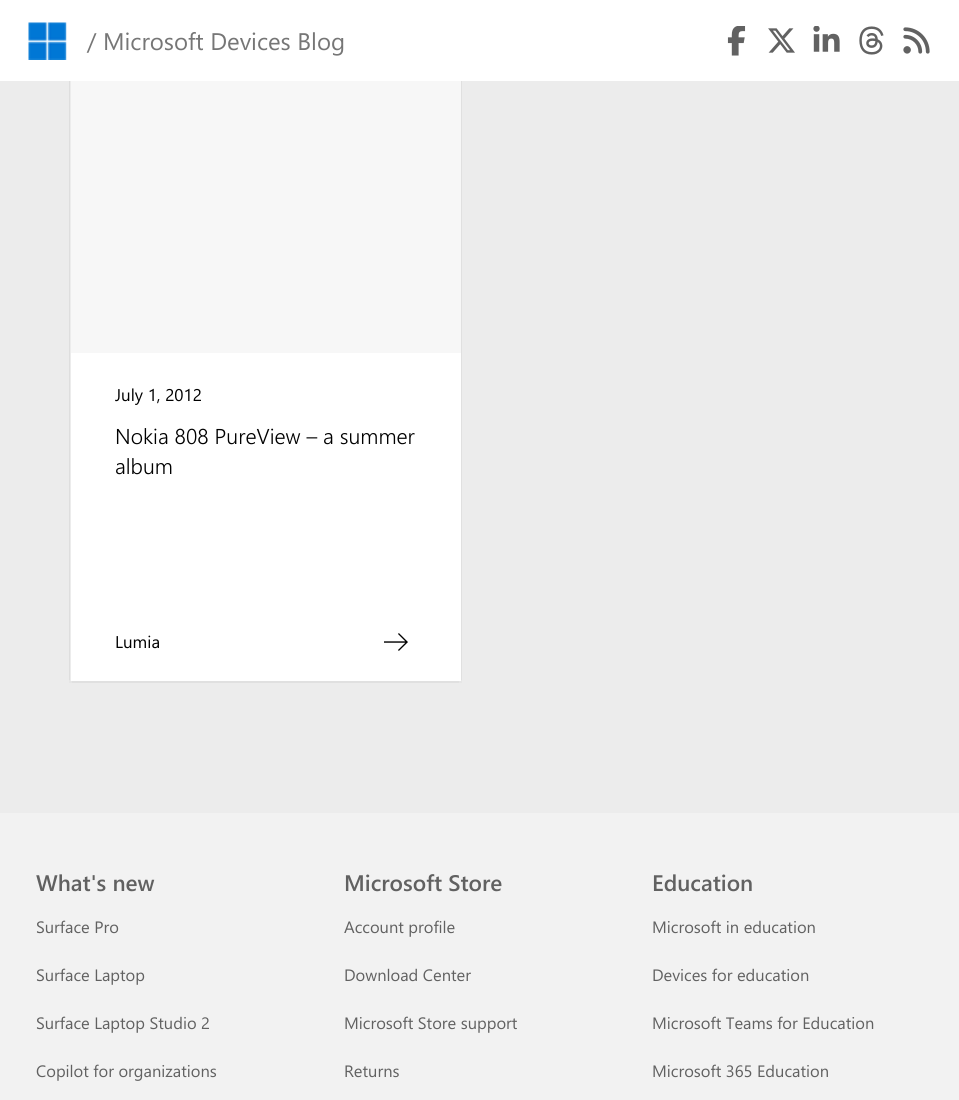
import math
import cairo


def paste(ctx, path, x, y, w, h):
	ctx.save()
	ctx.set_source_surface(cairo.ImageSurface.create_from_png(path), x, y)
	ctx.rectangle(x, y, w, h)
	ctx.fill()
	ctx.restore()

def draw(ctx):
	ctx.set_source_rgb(0.949, 0.949, 0.949)
	ctx.paint()
	ctx.set_source_rgb(0.922, 0.922, 0.922)
	ctx.rectangle(0, 81, 959, 732)
	ctx.fill()
	ctx.set_source_rgb(0.894, 0.894, 0.894)
	ctx.new_path()
	ctx.move_to(69, 59)
	ctx.line_to(69, 680)
	ctx.line_to(70, 680)
	ctx.line_to(70, 60)
	ctx.line_to(459, 60)
	ctx.line_to(459, 59)
	ctx.close_path()
	ctx.fill()
	ctx.set_source_rgba(0, 0, 0, 0.03)
	ctx.new_path()
	ctx.move_to(72, 59)
	ctx.line_to(72, 60)
	ctx.line_to(460, 60)
	ctx.line_to(460, 680)
	ctx.line_to(462, 680)
	ctx.line_to(462, 59)
	ctx.close_path()
	ctx.fill()
	ctx.new_path()
	ctx.move_to(69, 62)
	ctx.line_to(69, 683)
	ctx.line_to(459, 683)
	ctx.line_to(459, 681)
	ctx.line_to(70, 681)
	ctx.line_to(70, 62)
	ctx.close_path()
	ctx.fill()
	ctx.new_path()
	ctx.move_to(72, 681)
	ctx.line_to(72, 683)
	ctx.line_to(462, 683)
	ctx.line_to(462, 62)
	ctx.line_to(460, 62)
	ctx.line_to(460, 681)
	ctx.close_path()
	ctx.fill()
	ctx.set_source_rgb(1, 1, 1)
	ctx.rectangle(0, 0, 959, 81)
	ctx.fill()
	paste(ctx, 'media/1.png', 28, 22, 39, 38)
	ctx.select_font_face('Segoe UI')
	ctx.set_font_size(24)
	ctx.set_source_rgb(0.463, 0.463, 0.463)
	ctx.move_to(87, 50)
	ctx.show_text('/ Microsoft Devices Blog')
	paste(ctx, 'media/2.png', 727, 26, 19, 30)
	paste(ctx, 'media/3.png', 768, 28, 27, 25)
	paste(ctx, 'media/4.png', 813, 26, 27, 26)
	paste(ctx, 'media/5.png', 859, 26, 25, 29)
	paste(ctx, 'media/6.png', 903, 27, 27, 27)
	ctx.set_source_rgb(1, 1, 1)
	ctx.rectangle(71, 353, 390, 328)
	ctx.fill()
	ctx.set_source_rgb(0.965, 0.965, 0.965)
	ctx.rectangle(71, 81, 390, 272)
	ctx.fill()
	ctx.set_font_size(17)
	ctx.set_source_rgb(0, 0, 0)
	ctx.move_to(115, 401)
	ctx.show_text('July 1, 2012')
	ctx.select_font_face('Segoe UI Light')
	ctx.set_font_size(21.5)
	ctx.move_to(115, 444)
	ctx.show_text('Nokia 808 PureView – a summer')
	ctx.move_to(115, 474)
	ctx.show_text('album')
	ctx.select_font_face('Segoe UI')
	ctx.set_font_size(17)
	ctx.move_to(115, 648)
	ctx.show_text('Lumia')
	paste(ctx, 'media/7.png', 384, 633, 24, 18)
	ctx.select_font_face('Segoe UI SemiBold')
	ctx.set_font_size(22.5)
	ctx.set_source_rgb(0.38, 0.38, 0.38)
	ctx.move_to(36, 891)
	ctx.show_text('What\'s new')
	ctx.select_font_face('Segoe UI')
	ctx.set_font_size(16.5)
	for x, y, s in [
		(36, 933, 'Surface Pro'),
		(36, 981, 'Surface Laptop'),
		(36, 1029, 'Surface Laptop Studio 2'),
		(36, 1077, 'Copilot for organizations'),
	]:
		ctx.move_to(x, y)
		ctx.show_text(s)
	ctx.select_font_face('Segoe UI SemiBold')
	ctx.set_font_size(22.5)
	ctx.move_to(344, 891)
	ctx.show_text('Microsoft Store')
	ctx.select_font_face('Segoe UI')
	ctx.set_font_size(16.5)
	for x, y, s in [
		(344, 933, 'Account profile'),
		(344, 981, 'Download Center'),
		(344, 1029, 'Microsoft Store support'),
		(344, 1077, 'Returns'),
	]:
		ctx.move_to(x, y)
		ctx.show_text(s)
	ctx.select_font_face('Segoe UI SemiBold')
	ctx.set_font_size(22.5)
	ctx.move_to(652, 891)
	ctx.show_text('Education')
	ctx.select_font_face('Segoe UI')
	ctx.set_font_size(16.5)
	for x, y, s in [
		(652, 933, 'Microsoft in education'),
		(652, 981, 'Devices for education'),
		(652, 1029, 'Microsoft Teams for Education'),
		(652, 1077, 'Microsoft 365 Education'),
	]:
		ctx.move_to(x, y)
		ctx.show_text(s)


surface = cairo.ImageSurface(cairo.FORMAT_RGB24, 959, 1100)
ctx = cairo.Context(surface)
options = cairo.FontOptions()
options.set_hint_metrics(cairo.HINT_METRICS_OFF)
options.set_hint_style(cairo.HINT_STYLE_NONE)
ctx.set_font_options(options)
ctx.set_miter_limit(4)
draw(ctx)
surface.write_to_png('image.png')
